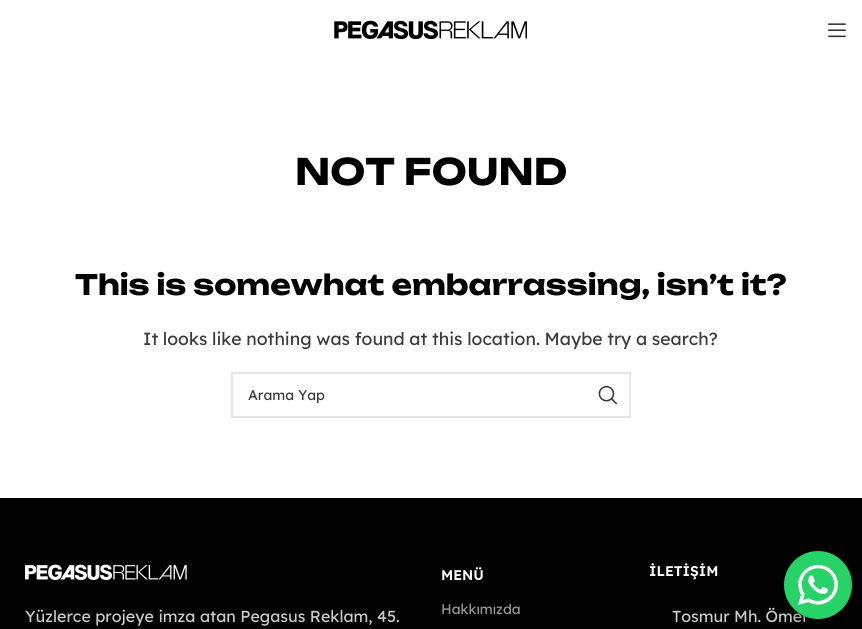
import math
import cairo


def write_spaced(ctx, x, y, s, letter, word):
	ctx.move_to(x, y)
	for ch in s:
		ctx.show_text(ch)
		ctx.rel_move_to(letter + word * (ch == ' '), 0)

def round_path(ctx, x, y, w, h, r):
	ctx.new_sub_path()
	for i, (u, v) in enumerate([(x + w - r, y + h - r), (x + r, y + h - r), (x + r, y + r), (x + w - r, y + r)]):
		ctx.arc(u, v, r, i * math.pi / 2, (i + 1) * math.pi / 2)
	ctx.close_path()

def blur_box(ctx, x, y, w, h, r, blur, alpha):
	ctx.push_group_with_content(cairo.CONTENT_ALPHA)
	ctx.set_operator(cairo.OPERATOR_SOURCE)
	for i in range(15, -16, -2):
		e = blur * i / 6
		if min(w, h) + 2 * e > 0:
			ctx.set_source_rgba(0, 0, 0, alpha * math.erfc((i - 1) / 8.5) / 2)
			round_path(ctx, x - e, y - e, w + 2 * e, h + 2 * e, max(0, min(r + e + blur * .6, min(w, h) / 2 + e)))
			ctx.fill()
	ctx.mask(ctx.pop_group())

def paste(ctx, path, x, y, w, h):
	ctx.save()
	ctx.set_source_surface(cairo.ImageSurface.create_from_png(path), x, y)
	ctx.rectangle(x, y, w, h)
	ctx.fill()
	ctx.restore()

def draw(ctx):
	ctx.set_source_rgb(1, 1, 1)
	ctx.paint()
	paste(ctx, 'media/1.png', 334, 20, 193, 19)
	paste(ctx, 'media/2.png', 828, 23, 18, 15)
	ctx.select_font_face('Unbounded', cairo.FONT_SLANT_NORMAL, cairo.FONT_WEIGHT_BOLD)
	ctx.set_font_size(36.25)
	ctx.set_source_rgb(0, 0, 0)
	ctx.move_to(295, 185)
	ctx.show_text('NOT FOUND')
	ctx.set_font_size(28)
	ctx.move_to(75, 295)
	ctx.show_text('This is somewhat embarrassing, isn’t it?')
	ctx.select_font_face('Lexend Deca')
	ctx.set_font_size(17.6)
	ctx.set_source_rgb(0.227, 0.227, 0.227)
	write_spaced(ctx, 143, 345, 'It looks like nothing was found at this location. Maybe try a search?', 0, -0.25)
	ctx.rectangle(232, 373, 398, 44)
	ctx.set_source_rgb(0.902, 0.902, 0.902)
	ctx.stroke()
	ctx.set_font_size(14)
	ctx.set_source_rgb(0.227, 0.227, 0.227)
	ctx.move_to(248, 400)
	ctx.show_text('Arama Yap')
	paste(ctx, 'media/3.png', 598, 385, 20, 20)
	ctx.set_source_rgb(0, 0, 0)
	ctx.rectangle(0, 498, 862, 131)
	ctx.fill()
	ctx.select_font_face('Lexend Deca SemiBold')
	ctx.set_source_rgb(1, 1, 1)
	ctx.move_to(441, 580)
	ctx.show_text('MENÜ')
	ctx.select_font_face('Lexend Deca')
	ctx.set_source_rgb(0.6, 0.6, 0.6)
	ctx.move_to(441, 614)
	ctx.show_text('Hakkımızda')
	ctx.select_font_face('Lexend Deca SemiBold')
	ctx.set_source_rgb(1, 1, 1)
	ctx.move_to(649, 576)
	ctx.show_text('İLETİŞİM')
	ctx.select_font_face('Lexend Deca')
	ctx.set_font_size(16)
	ctx.set_source_rgb(0.8, 0.8, 0.8)
	ctx.move_to(672, 622)
	ctx.show_text('Tosmur Mh. Ömer')
	paste(ctx, 'media/4.png', 25, 564, 162, 16)
	ctx.move_to(25, 622)
	ctx.show_text('Yüzlerce projeye imza atan Pegasus Reklam, 45.')
	ctx.set_source_rgb(0, 0, 0)
	blur_box(ctx, 784, 551, 68, 68, 34, 5.5, 0.5)
	ctx.set_source_rgb(0.145, 0.827, 0.4)
	ctx.arc(818, 585, 34, 0, 2 * math.pi)
	ctx.fill()
	paste(ctx, 'media/5.png', 798, 565, 40, 40)


surface = cairo.ImageSurface(cairo.FORMAT_RGB24, 862, 629)
ctx = cairo.Context(surface)
options = cairo.FontOptions()
options.set_hint_metrics(cairo.HINT_METRICS_OFF)
options.set_hint_style(cairo.HINT_STYLE_NONE)
ctx.set_font_options(options)
ctx.set_miter_limit(4)
draw(ctx)
surface.write_to_png('image.png')
